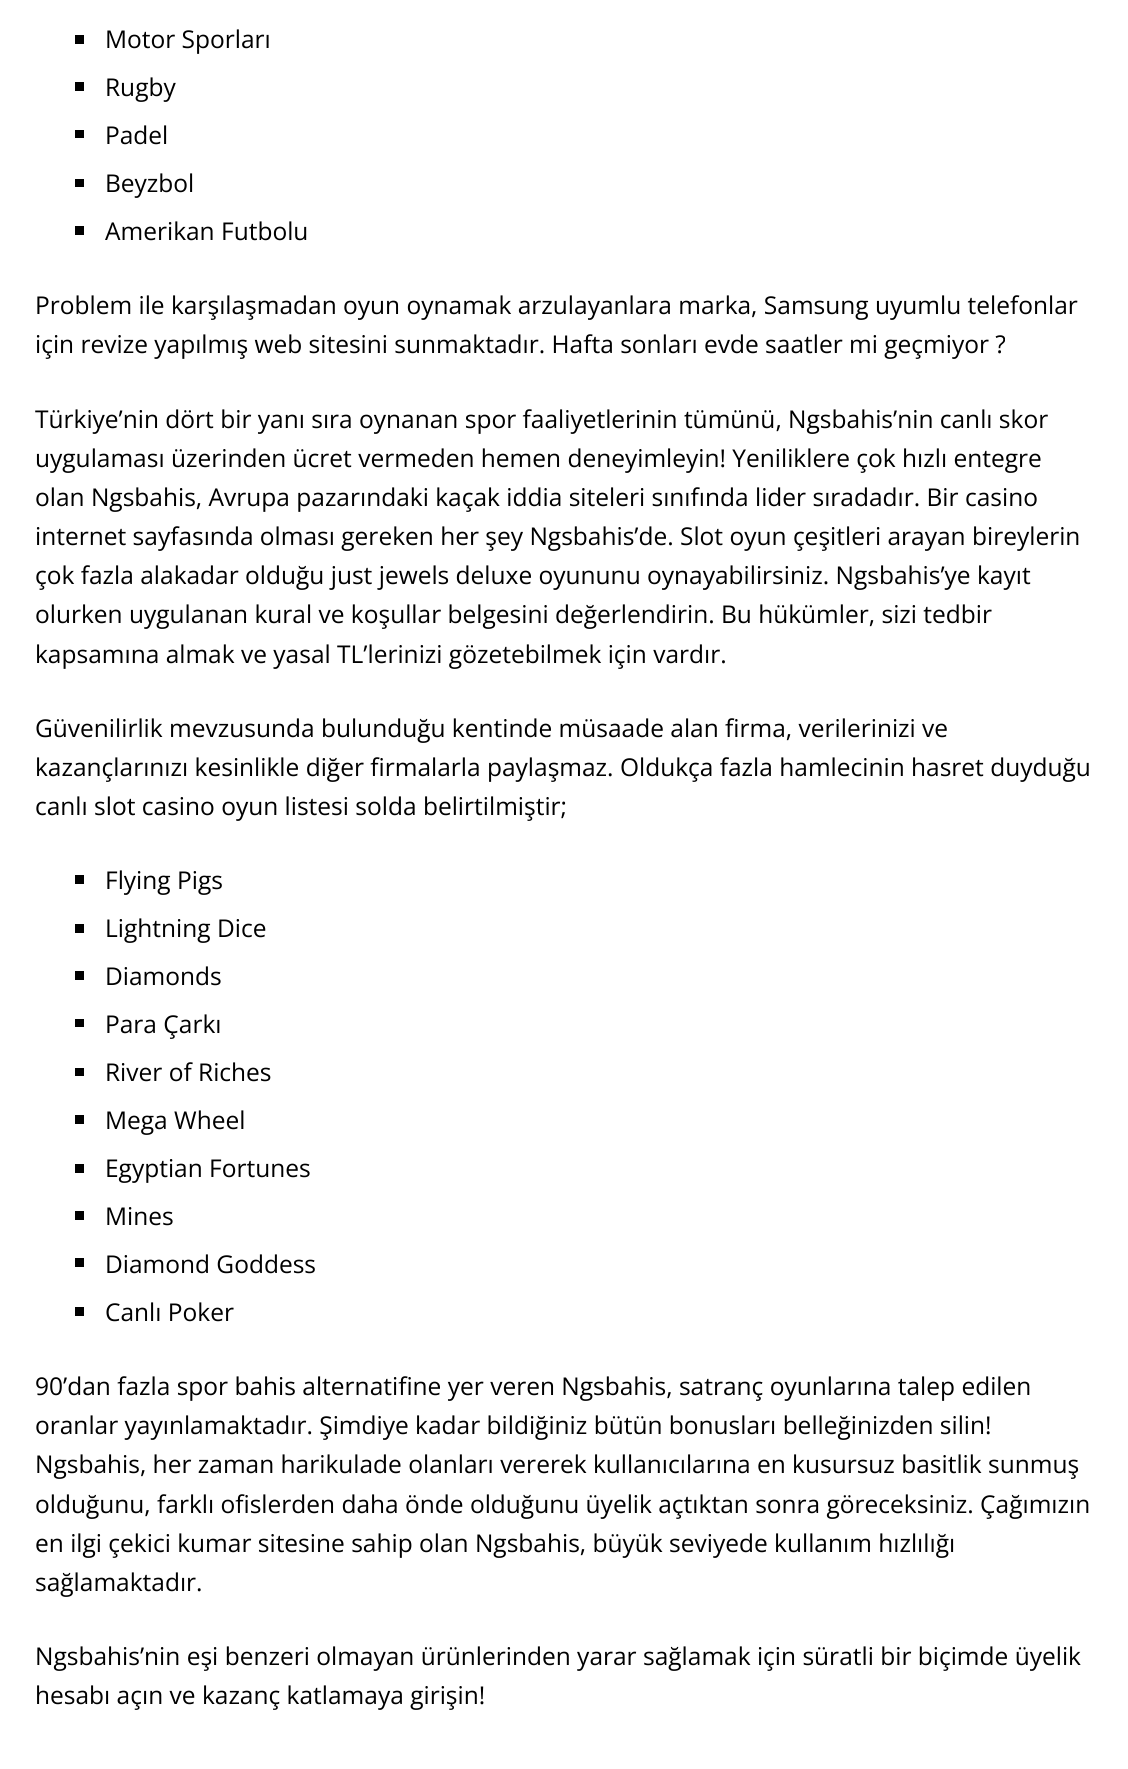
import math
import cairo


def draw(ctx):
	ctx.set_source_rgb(1, 1, 1)
	ctx.paint()
	ctx.set_source_rgb(0, 0, 0)
	ctx.rectangle(75, 35, 9, 9)
	ctx.fill()
	ctx.select_font_face('Open Sans')
	ctx.set_font_size(24.5)
	ctx.move_to(105, 48)
	ctx.show_text('Motor Sporları')
	ctx.rectangle(75, 82, 9, 9)
	ctx.fill()
	ctx.move_to(105, 96)
	ctx.show_text('Rugby')
	ctx.rectangle(75, 130, 9, 8)
	ctx.fill()
	ctx.move_to(105, 144)
	ctx.show_text('Padel')
	ctx.rectangle(75, 179, 9, 8)
	ctx.fill()
	ctx.move_to(105, 192)
	ctx.show_text('Beyzbol')
	ctx.rectangle(75, 226, 9, 9)
	ctx.fill()
	for x, y, s in [
		(105, 240, 'Amerikan Futbolu'),
		(35, 314, 'Problem ile karşılaşmadan oyun oynamak arzulayanlara marka, Samsung uyumlu telefonlar'),
		(35, 353, 'için revize yapılmış web sitesini sunmaktadır. Hafta sonları evde saatler mi geçmiyor ?'),
		(35, 428, 'Türkiye’nin dört bir yanı sıra oynanan spor faaliyetlerinin tümünü, Ngsbahis’nin canlı skor'),
		(35, 467, 'uygulaması üzerinden ücret vermeden hemen deneyimleyin! Yeniliklere çok hızlı entegre'),
		(35, 506, 'olan Ngsbahis, Avrupa pazarındaki kaçak iddia siteleri sınıfında lider sıradadır. Bir casino'),
		(35, 545, 'internet sayfasında olması gereken her şey Ngsbahis’de. Slot oyun çeşitleri arayan bireylerin'),
		(35, 584, 'çok fazla alakadar olduğu just jewels deluxe oyununu oynayabilirsiniz. Ngsbahis’ye kayıt'),
		(35, 623, 'olurken uygulanan kural ve koşullar belgesini değerlendirin. Bu hükümler, sizi tedbir'),
		(35, 663, 'kapsamına almak ve yasal TL’lerinizi gözetebilmek için vardır.'),
		(35, 737, 'Güvenilirlik mevzusunda bulunduğu kentinde müsaade alan firma, verilerinizi ve'),
		(35, 776, 'kazançlarınızı kesinlikle diğer firmalarla paylaşmaz. Oldukça fazla hamlecinin hasret duyduğu'),
		(35, 815, 'canlı slot casino oyun listesi solda belirtilmiştir;'),
	]:
		ctx.move_to(x, y)
		ctx.show_text(s)
	ctx.rectangle(75, 875, 9, 9)
	ctx.fill()
	ctx.move_to(105, 889)
	ctx.show_text('Flying Pigs')
	ctx.rectangle(75, 924, 9, 9)
	ctx.fill()
	ctx.move_to(105, 937)
	ctx.show_text('Lightning Dice')
	ctx.rectangle(75, 971, 9, 9)
	ctx.fill()
	ctx.move_to(105, 985)
	ctx.show_text('Diamonds')
	ctx.rectangle(75, 1019, 9, 8)
	ctx.fill()
	ctx.move_to(105, 1033)
	ctx.show_text('Para Çarkı')
	ctx.rectangle(75, 1068, 9, 8)
	ctx.fill()
	ctx.move_to(105, 1081)
	ctx.show_text('River of Riches')
	ctx.rectangle(75, 1115, 9, 9)
	ctx.fill()
	ctx.move_to(105, 1129)
	ctx.show_text('Mega Wheel')
	ctx.rectangle(75, 1164, 9, 9)
	ctx.fill()
	ctx.move_to(105, 1177)
	ctx.show_text('Egyptian Fortunes')
	ctx.rectangle(75, 1211, 9, 9)
	ctx.fill()
	ctx.move_to(105, 1225)
	ctx.show_text('Mines')
	ctx.rectangle(75, 1258, 9, 9)
	ctx.fill()
	ctx.move_to(105, 1273)
	ctx.show_text('Diamond Goddess')
	ctx.rectangle(75, 1307, 9, 9)
	ctx.fill()
	for x, y, s in [
		(105, 1321, 'Canlı Poker'),
		(35, 1395, '90’dan fazla spor bahis alternatifine yer veren Ngsbahis, satranç oyunlarına talep edilen'),
		(35, 1434, 'oranlar yayınlamaktadır. Şimdiye kadar bildiğiniz bütün bonusları belleğinizden silin!'),
		(35, 1473, 'Ngsbahis, her zaman harikulade olanları vererek kullanıcılarına en kusursuz basitlik sunmuş'),
		(35, 1513, 'olduğunu, farklı ofislerden daha önde olduğunu üyelik açtıktan sonra göreceksiniz. Çağımızın'),
		(35, 1552, 'en ilgi çekici kumar sitesine sahip olan Ngsbahis, büyük seviyede kullanım hızlılığı'),
		(35, 1591, 'sağlamaktadır.'),
		(35, 1665, 'Ngsbahis’nin eşi benzeri olmayan ürünlerinden yarar sağlamak için süratli bir biçimde üyelik'),
		(35, 1704, 'hesabı açın ve kazanç katlamaya girişin!'),
	]:
		ctx.move_to(x, y)
		ctx.show_text(s)


surface = cairo.ImageSurface(cairo.FORMAT_RGB24, 1128, 1769)
ctx = cairo.Context(surface)
options = cairo.FontOptions()
options.set_hint_metrics(cairo.HINT_METRICS_OFF)
options.set_hint_style(cairo.HINT_STYLE_NONE)
ctx.set_font_options(options)
ctx.set_miter_limit(4)
draw(ctx)
surface.write_to_png('image.png')
